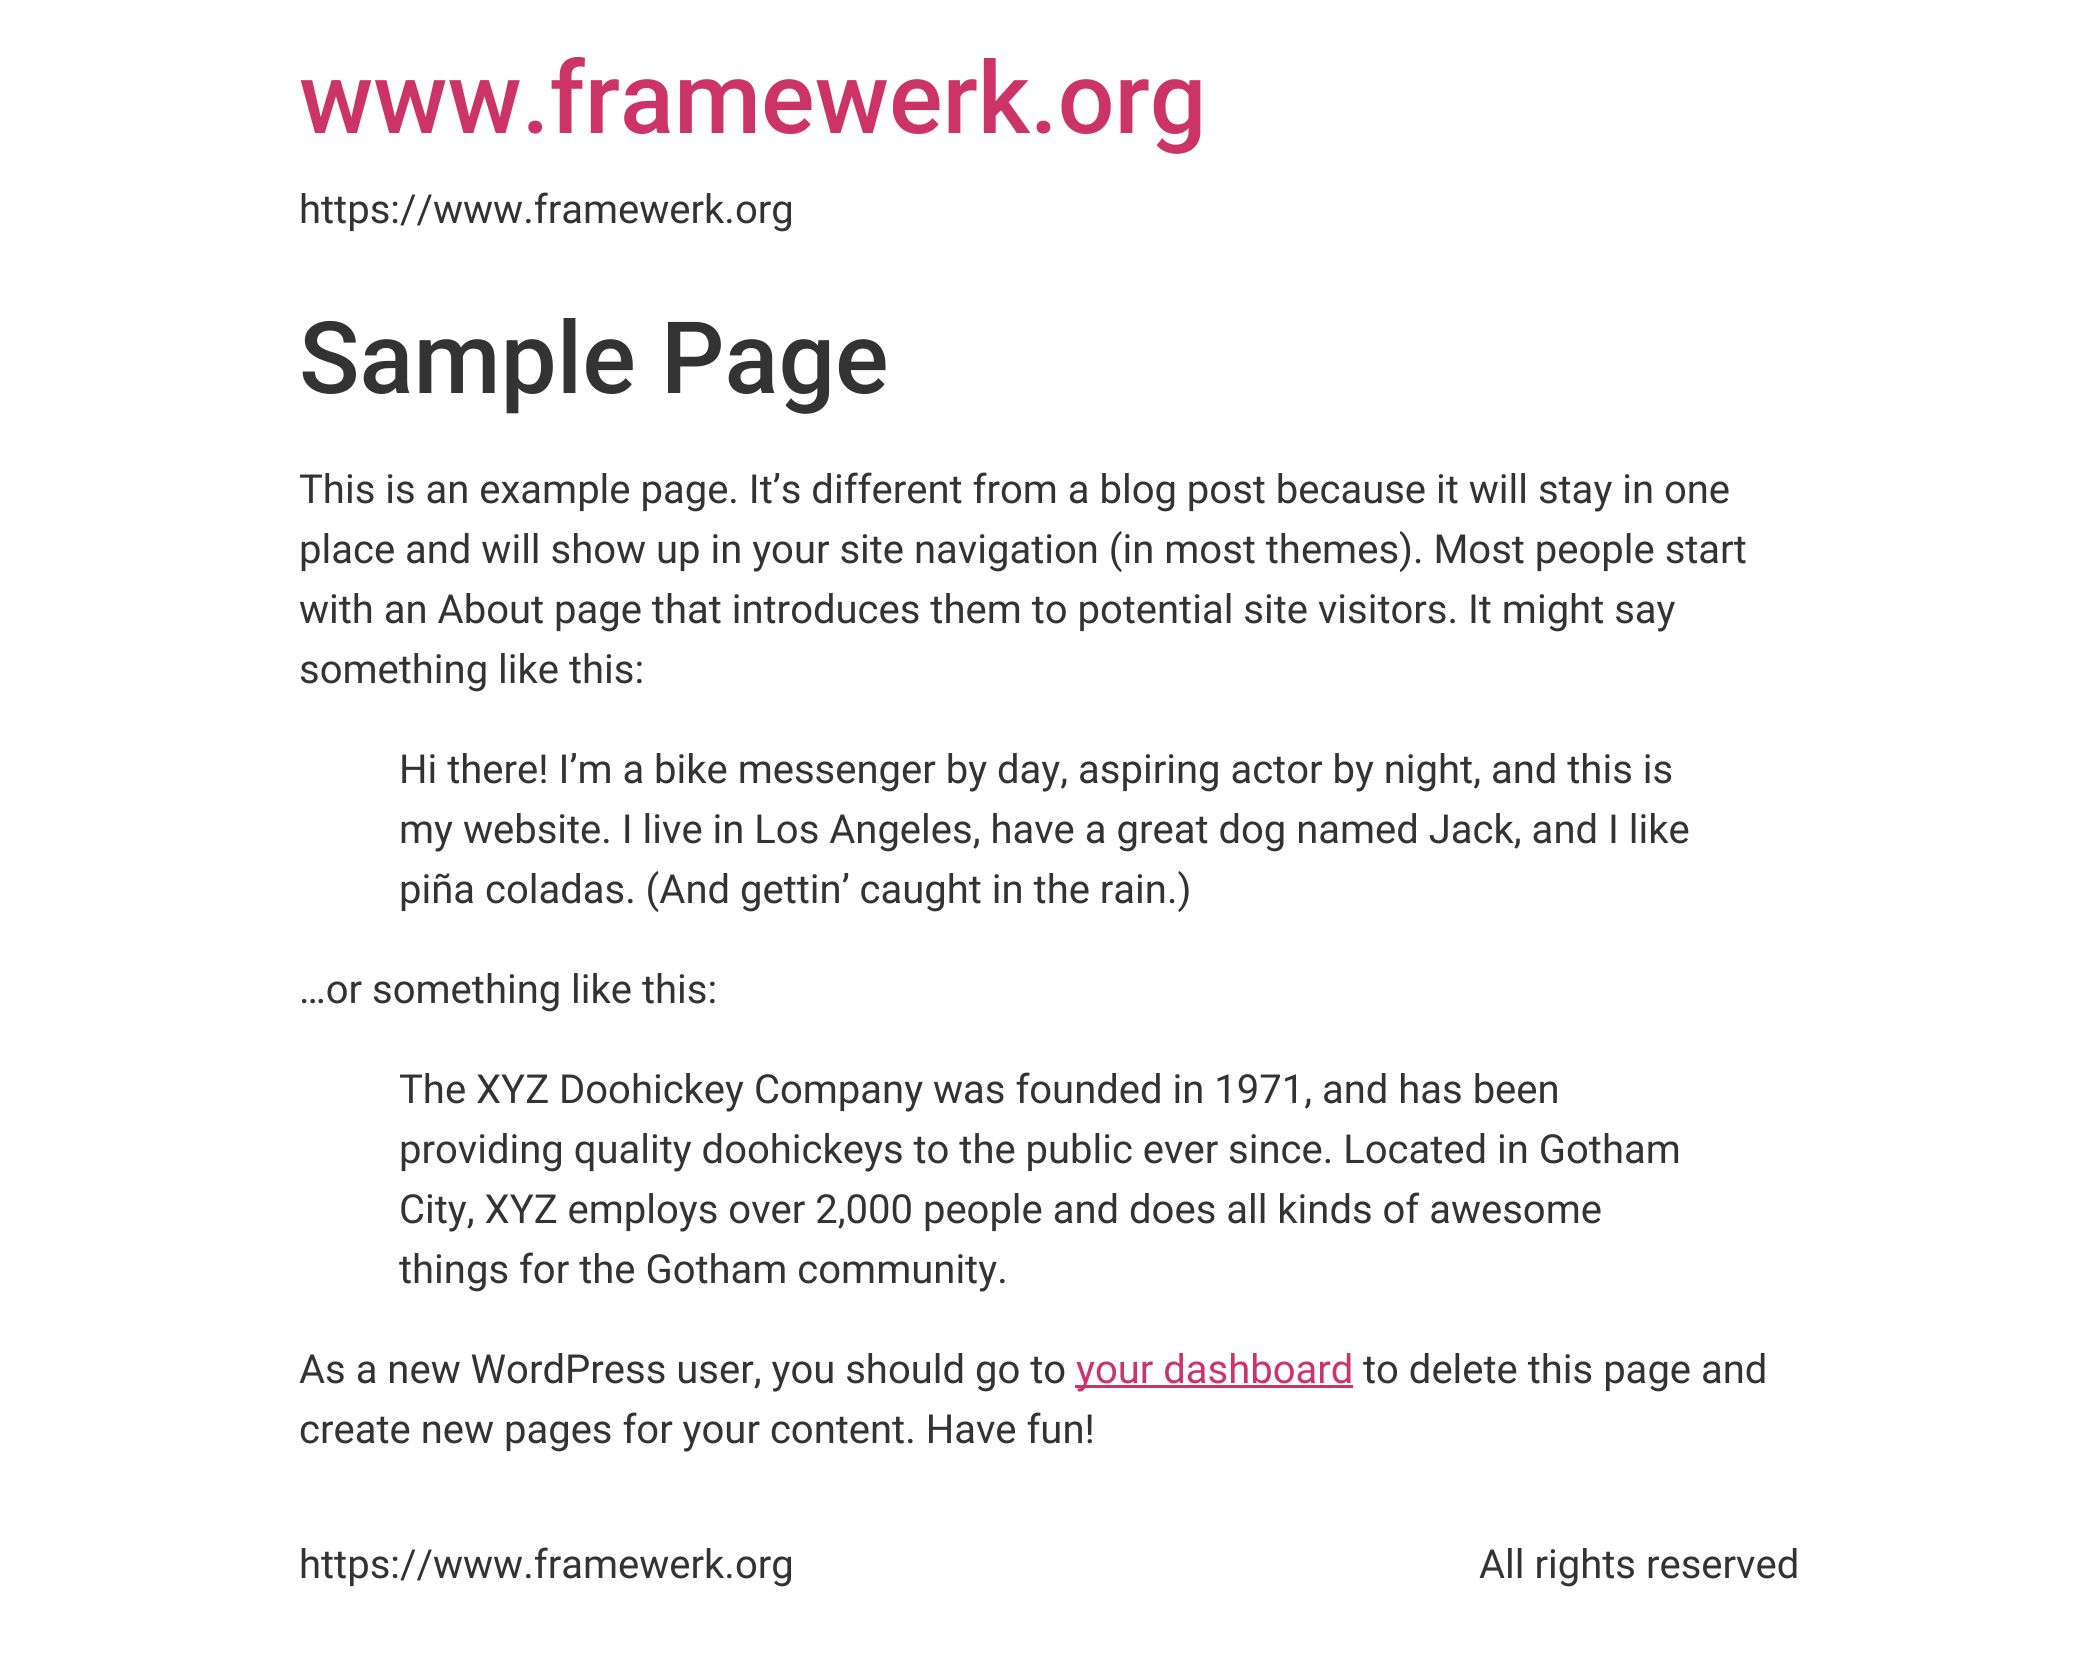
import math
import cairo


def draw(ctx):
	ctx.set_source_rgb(1, 1, 1)
	ctx.paint()
	ctx.select_font_face('Roboto Medium')
	ctx.set_font_size(100)
	ctx.set_source_rgb(0.8, 0.2, 0.4)
	ctx.move_to(299, 133)
	ctx.show_text('www.framewerk.org')
	ctx.select_font_face('Roboto')
	ctx.set_font_size(40)
	ctx.set_source_rgb(0.2, 0.2, 0.2)
	ctx.move_to(299, 223)
	ctx.show_text('https://www.framewerk.org')
	ctx.select_font_face('Roboto Medium')
	ctx.set_font_size(100)
	ctx.move_to(299, 393)
	ctx.show_text('Sample Page')
	ctx.select_font_face('Roboto')
	ctx.set_font_size(40)
	for x, y, s in [
		(299, 503, 'This is an example page. It’s different from a blog post because it will stay in one'),
		(299, 563, 'place and will show up in your site navigation (in most themes). Most people start'),
		(299, 623, 'with an About page that introduces them to potential site visitors. It might say'),
		(299, 683, 'something like this:'),
		(399, 783, 'Hi there! I’m a bike messenger by day, aspiring actor by night, and this is'),
		(399, 843, 'my website. I live in Los Angeles, have a great dog named Jack, and I like'),
		(399, 903, 'piña coladas. (And gettin’ caught in the rain.)'),
		(299, 1003, '…or something like this:'),
		(399, 1103, 'The XYZ Doohickey Company was founded in 1971, and has been'),
		(399, 1163, 'providing quality doohickeys to the public ever since. Located in Gotham'),
		(399, 1223, 'City, XYZ employs over 2,000 people and does all kinds of awesome'),
		(399, 1283, 'things for the Gotham community.'),
		(299, 1383, 'As a new WordPress user, you should go to'),
	]:
		ctx.move_to(x, y)
		ctx.show_text(s)
	ctx.set_source_rgb(0.8, 0.2, 0.4)
	ctx.rectangle(1075, 1385, 278, 3)
	ctx.fill()
	ctx.move_to(1076, 1383)
	ctx.show_text('your dashboard')
	ctx.set_source_rgb(0.2, 0.2, 0.2)
	for x, y, s in [
		(1363, 1383, 'to delete this page and'),
		(299, 1443, 'create new pages for your content. Have fun!'),
		(299, 1578, 'https://www.framewerk.org'),
		(1479, 1578, 'All rights reserved'),
	]:
		ctx.move_to(x, y)
		ctx.show_text(s)


surface = cairo.ImageSurface(cairo.FORMAT_RGB24, 2097, 1675)
ctx = cairo.Context(surface)
options = cairo.FontOptions()
options.set_hint_metrics(cairo.HINT_METRICS_OFF)
options.set_hint_style(cairo.HINT_STYLE_NONE)
ctx.set_font_options(options)
ctx.set_miter_limit(4)
draw(ctx)
surface.write_to_png('image.png')
